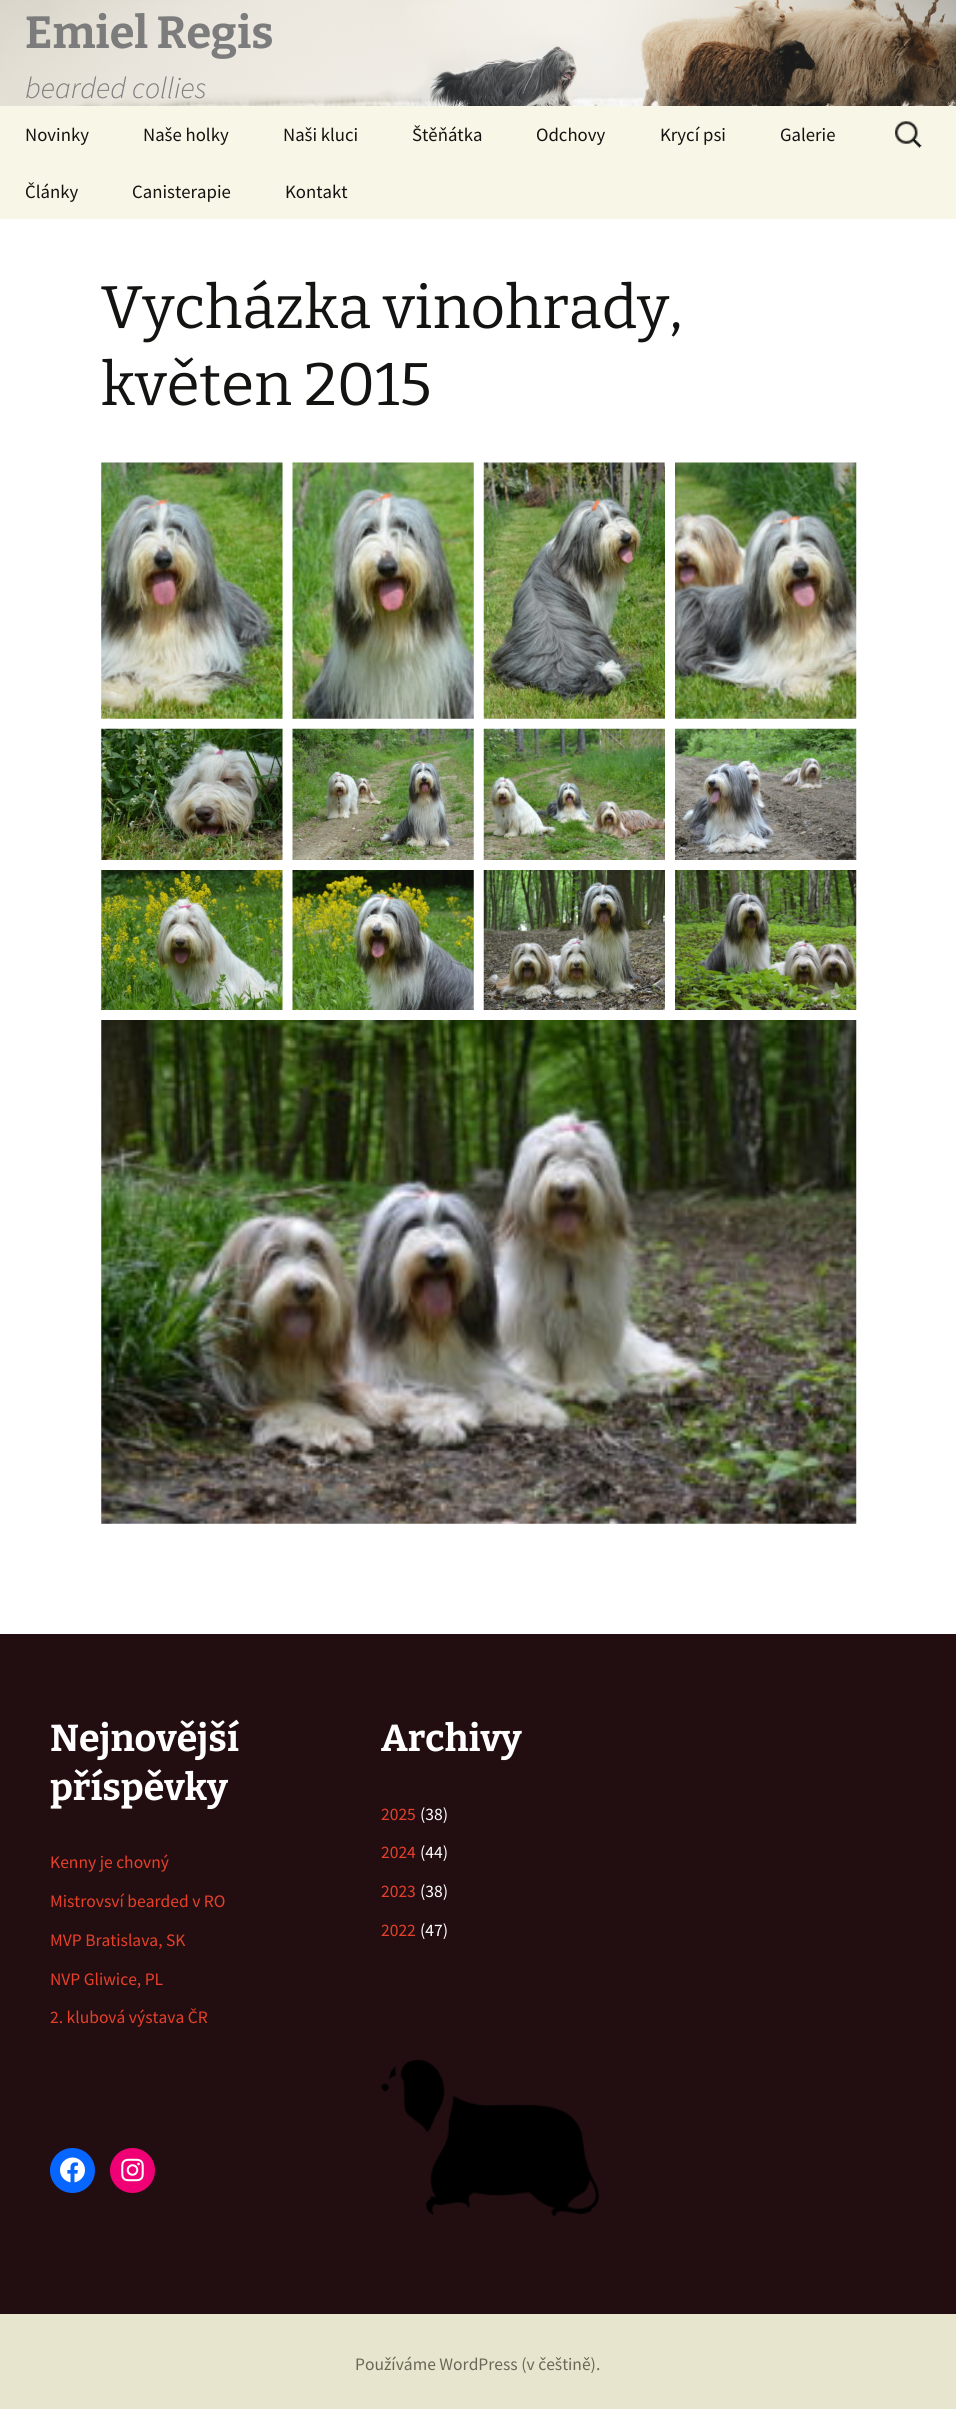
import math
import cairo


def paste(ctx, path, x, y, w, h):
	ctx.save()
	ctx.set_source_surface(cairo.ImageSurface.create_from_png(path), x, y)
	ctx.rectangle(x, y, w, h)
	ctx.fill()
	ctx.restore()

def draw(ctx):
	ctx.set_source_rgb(1, 1, 1)
	ctx.paint()
	paste(ctx, 'media/1.png', 0, 0, 956, 106)
	ctx.select_font_face('Bitter', cairo.FONT_SLANT_NORMAL, cairo.FONT_WEIGHT_BOLD)
	ctx.set_font_size(45)
	ctx.set_source_rgb(0.486, 0.486, 0.486)
	ctx.move_to(25, 48)
	ctx.show_text('Emiel Regis')
	ctx.select_font_face('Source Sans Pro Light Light', cairo.FONT_SLANT_ITALIC)
	ctx.set_font_size(30)
	ctx.move_to(25, 98)
	ctx.show_text('bearded collies')
	ctx.set_source_rgb(0.969, 0.961, 0.906)
	ctx.rectangle(0, 106, 956, 113)
	ctx.fill()
	ctx.select_font_face('Source Sans Pro')
	ctx.set_font_size(18.75)
	ctx.set_source_rgb(0.078, 0.078, 0.071)
	for x, y, s in [
		(25, 141, 'Novinky'),
		(143, 141, 'Naše holky'),
		(283, 141, 'Naši kluci'),
		(412, 141, 'Štěňátka'),
		(536, 141, 'Odchovy'),
		(660, 141, 'Krycí psi'),
		(780, 141, 'Galerie'),
		(25, 198, 'Články'),
		(132, 198, 'Canisterapie'),
		(285, 198, 'Kontakt'),
	]:
		ctx.move_to(x, y)
		ctx.show_text(s)
	paste(ctx, 'media/2.png', 895, 121, 27, 27)
	ctx.select_font_face('Bitter')
	ctx.set_font_size(60)
	ctx.move_to(101, 328)
	ctx.show_text('Vycházka vinohrady,')
	ctx.move_to(101, 405)
	ctx.show_text('květen 2015')
	paste(ctx, 'media/3.png', 101, 462, 182, 257)
	paste(ctx, 'media/4.png', 292, 462, 182, 257)
	paste(ctx, 'media/5.png', 483, 462, 182, 257)
	paste(ctx, 'media/6.png', 675, 462, 182, 257)
	paste(ctx, 'media/7.png', 101, 728, 182, 132)
	paste(ctx, 'media/8.png', 292, 728, 182, 132)
	paste(ctx, 'media/9.png', 483, 728, 182, 132)
	paste(ctx, 'media/10.png', 675, 728, 182, 132)
	paste(ctx, 'media/11.png', 101, 870, 182, 140)
	paste(ctx, 'media/12.png', 292, 870, 182, 140)
	paste(ctx, 'media/13.png', 483, 870, 182, 140)
	paste(ctx, 'media/14.png', 675, 870, 182, 140)
	paste(ctx, 'media/15.png', 101, 1020, 756, 504)
	ctx.set_source_rgb(0.91, 0.898, 0.808)
	ctx.rectangle(0, 2314, 956, 95)
	ctx.fill()
	ctx.set_source_rgb(0.133, 0.055, 0.063)
	ctx.rectangle(0, 1634, 956, 680)
	ctx.fill()
	ctx.select_font_face('Bitter', cairo.FONT_SLANT_NORMAL, cairo.FONT_WEIGHT_BOLD)
	ctx.set_font_size(37.5)
	ctx.set_source_rgb(1, 1, 1)
	ctx.move_to(50, 1751)
	ctx.show_text('Nejnovější')
	ctx.move_to(50, 1800)
	ctx.show_text('příspěvky')
	ctx.select_font_face('Source Sans Pro')
	ctx.set_font_size(17.5)
	ctx.set_source_rgb(0.902, 0.251, 0.165)
	for x, y, s in [
		(50, 1868, 'Kenny je chovný'),
		(50, 1907, 'Mistrovsví bearded v RO'),
		(50, 1946, 'MVP Bratislava, SK'),
		(50, 1985, 'NVP Gliwice, PL'),
		(50, 2023, '2. klubová výstava ČR'),
	]:
		ctx.move_to(x, y)
		ctx.show_text(s)
	ctx.select_font_face('Bitter', cairo.FONT_SLANT_NORMAL, cairo.FONT_WEIGHT_BOLD)
	ctx.set_font_size(37.5)
	ctx.set_source_rgb(1, 1, 1)
	ctx.move_to(381, 1751)
	ctx.show_text('Archivy')
	ctx.select_font_face('Source Sans Pro')
	ctx.set_font_size(17.5)
	ctx.set_source_rgb(0.902, 0.251, 0.165)
	ctx.move_to(381, 1820)
	ctx.show_text('2025')
	ctx.set_source_rgb(1, 1, 1)
	ctx.move_to(420, 1820)
	ctx.show_text('(38)')
	ctx.set_source_rgb(0.902, 0.251, 0.165)
	ctx.move_to(381, 1858)
	ctx.show_text('2024')
	ctx.set_source_rgb(1, 1, 1)
	ctx.move_to(420, 1858)
	ctx.show_text('(44)')
	ctx.set_source_rgb(0.902, 0.251, 0.165)
	ctx.move_to(381, 1897)
	ctx.show_text('2023')
	ctx.set_source_rgb(1, 1, 1)
	ctx.move_to(420, 1897)
	ctx.show_text('(38)')
	ctx.set_source_rgb(0.902, 0.251, 0.165)
	ctx.move_to(381, 1936)
	ctx.show_text('2022')
	ctx.set_source_rgb(1, 1, 1)
	ctx.move_to(420, 1936)
	ctx.show_text('(47)')
	ctx.set_source_rgb(0.031, 0.4, 1)
	ctx.new_path()
	ctx.arc(72.5, 2170.5, 22.5, 0, 2 * math.pi)
	ctx.fill()
	paste(ctx, 'media/16.png', 60, 2157, 25, 26)
	ctx.set_source_rgb(0.941, 0, 0.459)
	ctx.arc(132.5, 2170.5, 22.5, 0, 2 * math.pi)
	ctx.fill()
	paste(ctx, 'media/17.png', 121, 2158, 23, 24)
	paste(ctx, 'media/18.png', 381, 2060, 218, 157)
	ctx.set_source_rgb(0.408, 0.404, 0.345)
	ctx.move_to(355, 2370)
	ctx.show_text('Používáme WordPress (v češtině).')


surface = cairo.ImageSurface(cairo.FORMAT_RGB24, 956, 2409)
ctx = cairo.Context(surface)
options = cairo.FontOptions()
options.set_hint_metrics(cairo.HINT_METRICS_OFF)
options.set_hint_style(cairo.HINT_STYLE_NONE)
ctx.set_font_options(options)
ctx.set_miter_limit(4)
draw(ctx)
surface.write_to_png('image.png')
